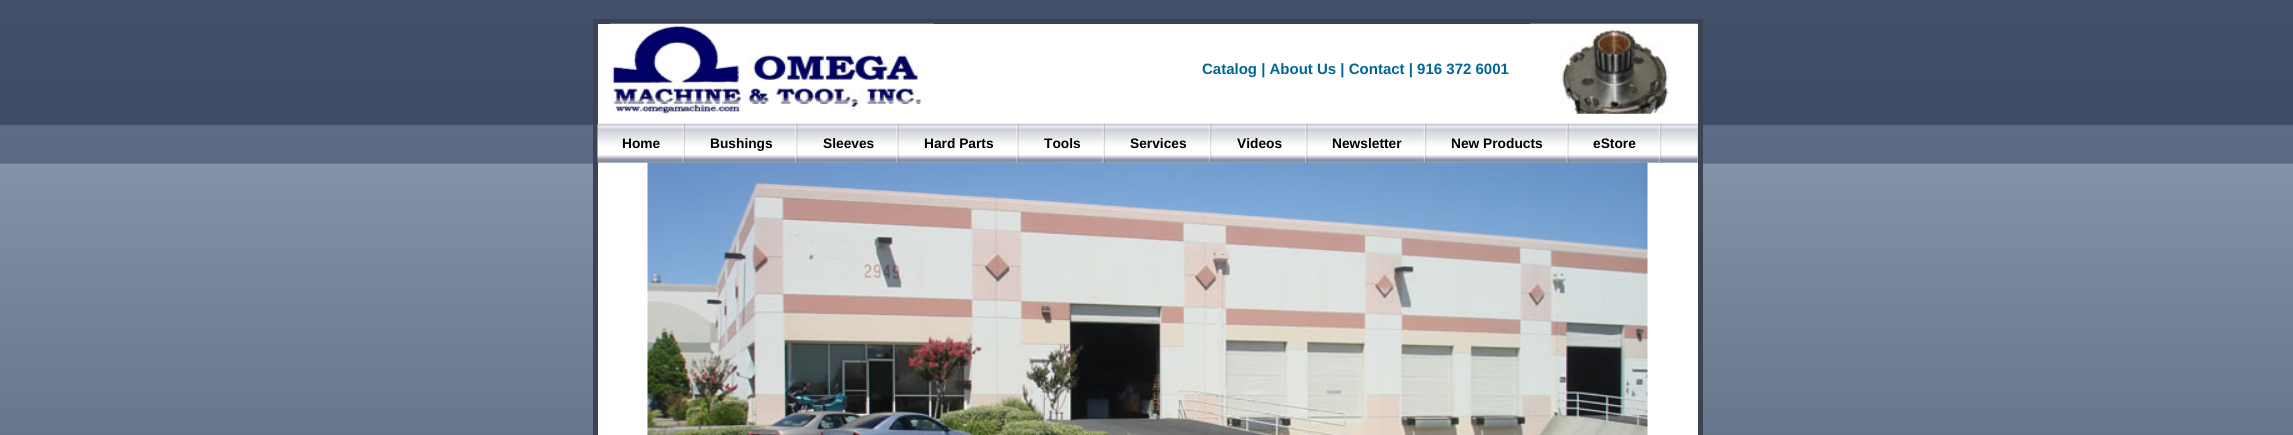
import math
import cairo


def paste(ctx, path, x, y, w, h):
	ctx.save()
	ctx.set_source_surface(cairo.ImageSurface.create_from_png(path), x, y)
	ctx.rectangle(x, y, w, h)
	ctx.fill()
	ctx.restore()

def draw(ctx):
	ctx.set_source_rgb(1, 1, 1)
	ctx.paint()
	paste(ctx, 'media/1.png', 0, 0, 2293, 435)
	ctx.set_source_rgb(1, 1, 1)
	ctx.rectangle(595.5, 21.5, 1105, 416)
	ctx.fill_preserve()
	ctx.set_source_rgb(0.227, 0.267, 0.322)
	ctx.set_line_width(5)
	ctx.stroke()
	paste(ctx, 'media/2.png', 610, 23, 324, 91)
	paste(ctx, 'media/3.png', 1530, 23, 168, 91)
	ctx.select_font_face('Liberation Sans', cairo.FONT_SLANT_NORMAL, cairo.FONT_WEIGHT_BOLD)
	ctx.set_font_size(15)
	ctx.set_source_rgb(0, 0.4, 0.6)
	ctx.move_to(1202, 74)
	ctx.show_text('Catalog | About Us | Contact | 916 372 6001')
	ctx.set_source_rgb(0.8, 0.8, 0.8)
	ctx.rectangle(598, 124, 1100, 39)
	ctx.fill()
	paste(ctx, 'media/4.png', 597, 123, 1101, 40)
	paste(ctx, 'media/15.png', 647, 162, 1001, 273)
	paste(ctx, 'media/5.png', 682, 123, 3, 40)
	ctx.set_font_size(13.75)
	ctx.set_source_rgb(0, 0, 0)
	ctx.move_to(622, 148)
	ctx.show_text('Home')
	paste(ctx, 'media/6.png', 795, 123, 3, 40)
	ctx.move_to(710, 148)
	ctx.show_text('Bushings')
	paste(ctx, 'media/7.png', 896, 123, 3, 40)
	ctx.move_to(823, 148)
	ctx.show_text('Sleeves')
	paste(ctx, 'media/8.png', 1016, 123, 3, 40)
	ctx.move_to(924, 148)
	ctx.show_text('Hard Parts')
	paste(ctx, 'media/9.png', 1102, 123, 3, 40)
	ctx.move_to(1044, 148)
	ctx.show_text('Tools')
	paste(ctx, 'media/10.png', 1208, 123, 4, 40)
	ctx.move_to(1130, 148)
	ctx.show_text('Services')
	paste(ctx, 'media/11.png', 1305, 123, 3, 40)
	ctx.move_to(1237, 148)
	ctx.show_text('Videos')
	paste(ctx, 'media/12.png', 1423, 123, 4, 40)
	ctx.move_to(1332, 148)
	ctx.show_text('Newsletter')
	paste(ctx, 'media/13.png', 1566, 123, 3, 40)
	ctx.move_to(1451, 148)
	ctx.show_text('New Products')
	paste(ctx, 'media/14.png', 1658, 123, 4, 40)
	ctx.move_to(1593, 148)
	ctx.show_text('eStore')


surface = cairo.ImageSurface(cairo.FORMAT_RGB24, 2293, 435)
ctx = cairo.Context(surface)
options = cairo.FontOptions()
options.set_hint_metrics(cairo.HINT_METRICS_OFF)
options.set_hint_style(cairo.HINT_STYLE_NONE)
ctx.set_font_options(options)
ctx.set_miter_limit(4)
draw(ctx)
surface.write_to_png('image.png')
